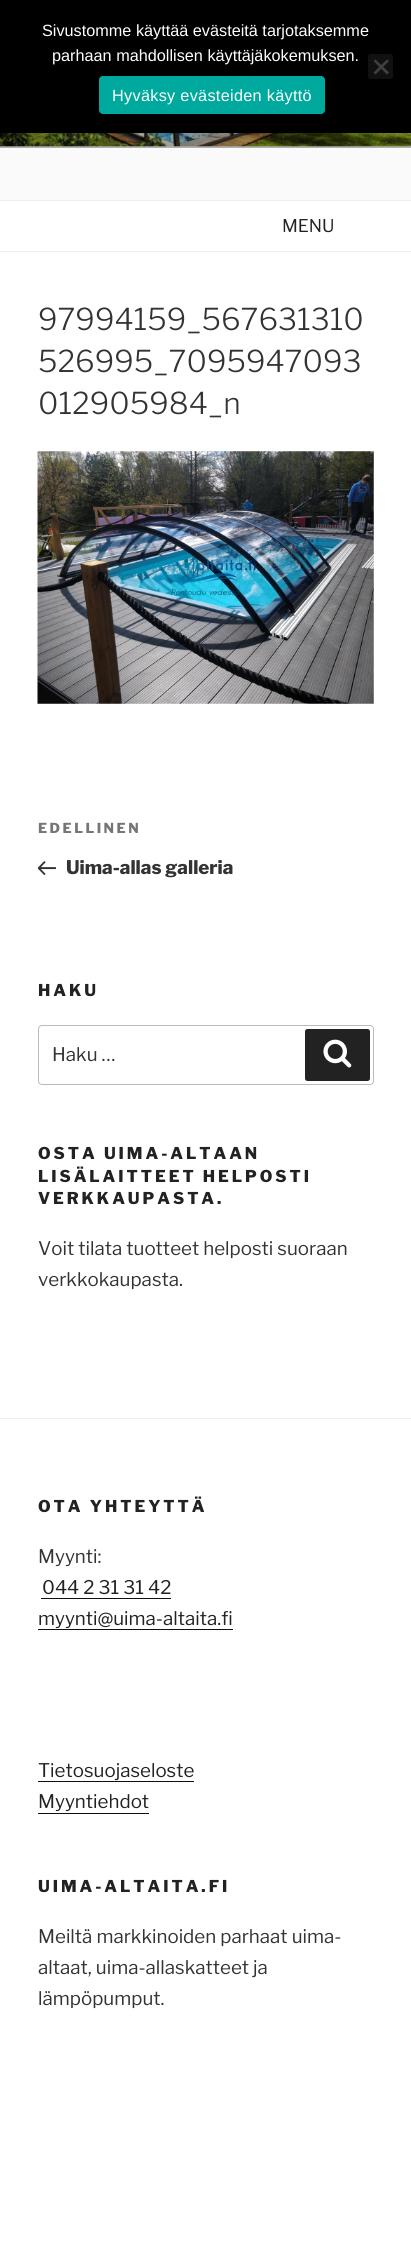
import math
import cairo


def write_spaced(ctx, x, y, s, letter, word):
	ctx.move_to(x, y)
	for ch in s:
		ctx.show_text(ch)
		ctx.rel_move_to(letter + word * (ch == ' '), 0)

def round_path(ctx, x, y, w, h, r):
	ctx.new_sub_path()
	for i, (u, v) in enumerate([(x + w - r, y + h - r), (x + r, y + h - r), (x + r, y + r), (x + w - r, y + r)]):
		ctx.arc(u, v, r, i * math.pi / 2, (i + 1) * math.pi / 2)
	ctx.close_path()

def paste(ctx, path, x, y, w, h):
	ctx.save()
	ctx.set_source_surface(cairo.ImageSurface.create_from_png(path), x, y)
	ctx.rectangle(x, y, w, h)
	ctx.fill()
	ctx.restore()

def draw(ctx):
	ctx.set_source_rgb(1, 1, 1)
	ctx.paint()
	ctx.set_source_rgb(0, 0, 0)
	ctx.rectangle(0, 0, 411, 133)
	ctx.fill()
	ctx.select_font_face('Liberation Sans')
	ctx.set_font_size(16.25)
	ctx.set_source_rgb(1, 1, 1)
	ctx.move_to(42, 36)
	ctx.show_text('Sivustomme käyttää evästeitä tarjotaksemme')
	ctx.move_to(52, 61)
	ctx.show_text('parhaan mahdollisen käyttäjäkokemuksen.')
	ctx.set_source_rgb(0.067, 0.067, 0.067)
	round_path(ctx, 368, 54, 25, 25, 2.5)
	ctx.fill()
	ctx.set_source_rgb(0.251, 0.251, 0.251)
	ctx.new_path()
	ctx.move_to(387, 59.5)
	ctx.line_to(389, 61)
	ctx.line_to(375.5, 74.5)
	ctx.line_to(373.5, 72.5)
	ctx.close_path()
	ctx.fill()
	ctx.new_path()
	ctx.move_to(373.5, 61)
	ctx.line_to(375.5, 59.5)
	ctx.line_to(389, 72.5)
	ctx.line_to(387, 74.5)
	ctx.close_path()
	ctx.fill()
	ctx.set_source_rgb(0, 0.663, 0.616)
	round_path(ctx, 99, 76, 226, 38, 4)
	ctx.fill()
	ctx.set_source_rgb(1, 1, 1)
	write_spaced(ctx, 112, 101, 'Hyväksy evästeiden käyttö', 0.3, 0)
	ctx.set_source_rgb(0.98, 0.98, 0.98)
	ctx.rectangle(0, 146, 411, 54)
	ctx.fill()
	paste(ctx, 'media/1.png', 0, 133, 411, 14)
	gradient = cairo.LinearGradient(206, 0, 206, 148)
	gradient.add_color_stop_rgba(0, 0, 0, 0, 0)
	gradient.add_color_stop_rgba(0.75, 0, 0, 0, 0.3)
	gradient.add_color_stop_rgba(1, 0, 0, 0, 0.3)
	ctx.set_source(gradient)
	ctx.rectangle(0, 133, 411, 15)
	ctx.fill()
	ctx.set_source_rgb(0.933, 0.933, 0.933)
	ctx.rectangle(0, 200, 411, 1)
	ctx.fill()
	ctx.rectangle(0, 251, 411, 1)
	ctx.fill()
	ctx.select_font_face('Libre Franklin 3 Thin')
	ctx.set_font_size(17.5)
	ctx.set_source_rgb(0.133, 0.133, 0.133)
	ctx.move_to(282, 232)
	ctx.show_text('MENU')
	ctx.select_font_face('Libre Franklin Thin')
	ctx.set_font_size(30)
	ctx.set_source_rgb(0.2, 0.2, 0.2)
	for x, y, s in [
		(38, 330, '97994159_567631310'),
		(38, 372, '526995_7095947093'),
		(38, 414, '012905984_n'),
	]:
		ctx.move_to(x, y)
		ctx.show_text(s)
	paste(ctx, 'media/2.png', 37, 451, 337, 253)
	ctx.select_font_face('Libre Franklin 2 Thin')
	ctx.set_font_size(13.75)
	ctx.set_source_rgb(0.463, 0.463, 0.463)
	write_spaced(ctx, 38, 833, 'EDELLINEN', 2.5, 0)
	paste(ctx, 'media/3.png', 38, 861, 18, 14)
	ctx.set_font_size(18.75)
	ctx.set_source_rgb(0.2, 0.2, 0.2)
	ctx.move_to(66, 874)
	ctx.show_text('Uima-allas galleria')
	ctx.set_font_size(16.25)
	ctx.set_source_rgb(0.133, 0.133, 0.133)
	write_spaced(ctx, 38, 996, 'HAKU', 2.95, 0)
	round_path(ctx, 38.5, 1025.5, 335, 59, 3.5)
	ctx.set_source_rgb(0.733, 0.733, 0.733)
	ctx.set_line_width(1)
	ctx.stroke()
	ctx.select_font_face('Libre Franklin 3 Thin')
	ctx.set_font_size(18.75)
	ctx.set_source_rgb(0.2, 0.2, 0.2)
	ctx.move_to(52, 1061)
	ctx.show_text('Haku …')
	ctx.set_source_rgb(0.133, 0.133, 0.133)
	round_path(ctx, 305, 1029, 65, 52, 2.5)
	ctx.fill()
	paste(ctx, 'media/4.png', 323, 1039, 29, 29)
	ctx.select_font_face('Libre Franklin 2 Thin')
	ctx.set_font_size(16.25)
	for x, y, s in [
		(38, 1159, 'OSTA UIMA-ALTAAN'),
		(38, 1182, 'LISÄLAITTEET HELPOSTI'),
		(38, 1204, 'VERKKAUPASTA.'),
	]:
		write_spaced(ctx, x, y, s, 2.95, 0)
	ctx.select_font_face('Libre Franklin 3 Thin')
	ctx.set_font_size(18.75)
	ctx.set_source_rgb(0.2, 0.2, 0.2)
	ctx.move_to(38, 1255)
	ctx.show_text('Voit tilata tuotteet helposti suoraan')
	ctx.move_to(38, 1286)
	ctx.show_text('verkkokaupasta.')
	ctx.set_source_rgb(0.933, 0.933, 0.933)
	ctx.rectangle(0, 1418, 411, 1)
	ctx.fill()
	ctx.select_font_face('Libre Franklin 2 Thin')
	ctx.set_font_size(16.25)
	ctx.set_source_rgb(0.133, 0.133, 0.133)
	write_spaced(ctx, 38, 1512, 'OTA YHTEYTTÄ', 2.95, 0)
	ctx.select_font_face('Libre Franklin 3 Thin')
	ctx.set_font_size(18.75)
	ctx.set_source_rgb(0.2, 0.2, 0.2)
	ctx.move_to(38, 1563)
	ctx.show_text('Myynti:')
	ctx.set_source_rgb(0.133, 0.133, 0.133)
	ctx.move_to(42, 1594)
	ctx.show_text('044 2 31 31 42')
	ctx.set_source_rgb(0.059, 0.059, 0.059)
	ctx.rectangle(41, 1598, 130, 1)
	ctx.fill()
	ctx.set_source_rgb(0.133, 0.133, 0.133)
	ctx.move_to(38, 1625)
	ctx.show_text('myynti@uima-altaita.fi')
	ctx.set_source_rgb(0.059, 0.059, 0.059)
	ctx.rectangle(38, 1629, 195, 1)
	ctx.fill()
	ctx.set_source_rgb(0.133, 0.133, 0.133)
	ctx.move_to(38, 1777)
	ctx.show_text('Tietosuojaseloste')
	ctx.set_source_rgb(0.059, 0.059, 0.059)
	ctx.rectangle(38, 1781, 156, 1)
	ctx.fill()
	ctx.set_source_rgb(0.133, 0.133, 0.133)
	ctx.move_to(38, 1808)
	ctx.show_text('Myyntiehdot')
	ctx.set_source_rgb(0.059, 0.059, 0.059)
	ctx.rectangle(38, 1813, 111, 1)
	ctx.fill()
	ctx.select_font_face('Libre Franklin 2 Thin')
	ctx.set_font_size(16.25)
	ctx.set_source_rgb(0.133, 0.133, 0.133)
	write_spaced(ctx, 38, 1892, 'UIMA-ALTAITA.FI', 2.95, 0)
	ctx.select_font_face('Libre Franklin 3 Thin')
	ctx.set_font_size(18.75)
	ctx.set_source_rgb(0.2, 0.2, 0.2)
	for x, y, s in [
		(38, 1943, 'Meiltä markkinoiden parhaat uima-'),
		(38, 1974, 'altaat, uima-allaskatteet ja'),
		(38, 2005, 'lämpöpumput.'),
	]:
		ctx.move_to(x, y)
		ctx.show_text(s)


surface = cairo.ImageSurface(cairo.FORMAT_RGB24, 411, 2261)
ctx = cairo.Context(surface)
options = cairo.FontOptions()
options.set_hint_metrics(cairo.HINT_METRICS_OFF)
options.set_hint_style(cairo.HINT_STYLE_NONE)
ctx.set_font_options(options)
ctx.set_miter_limit(4)
draw(ctx)
surface.write_to_png('image.png')
